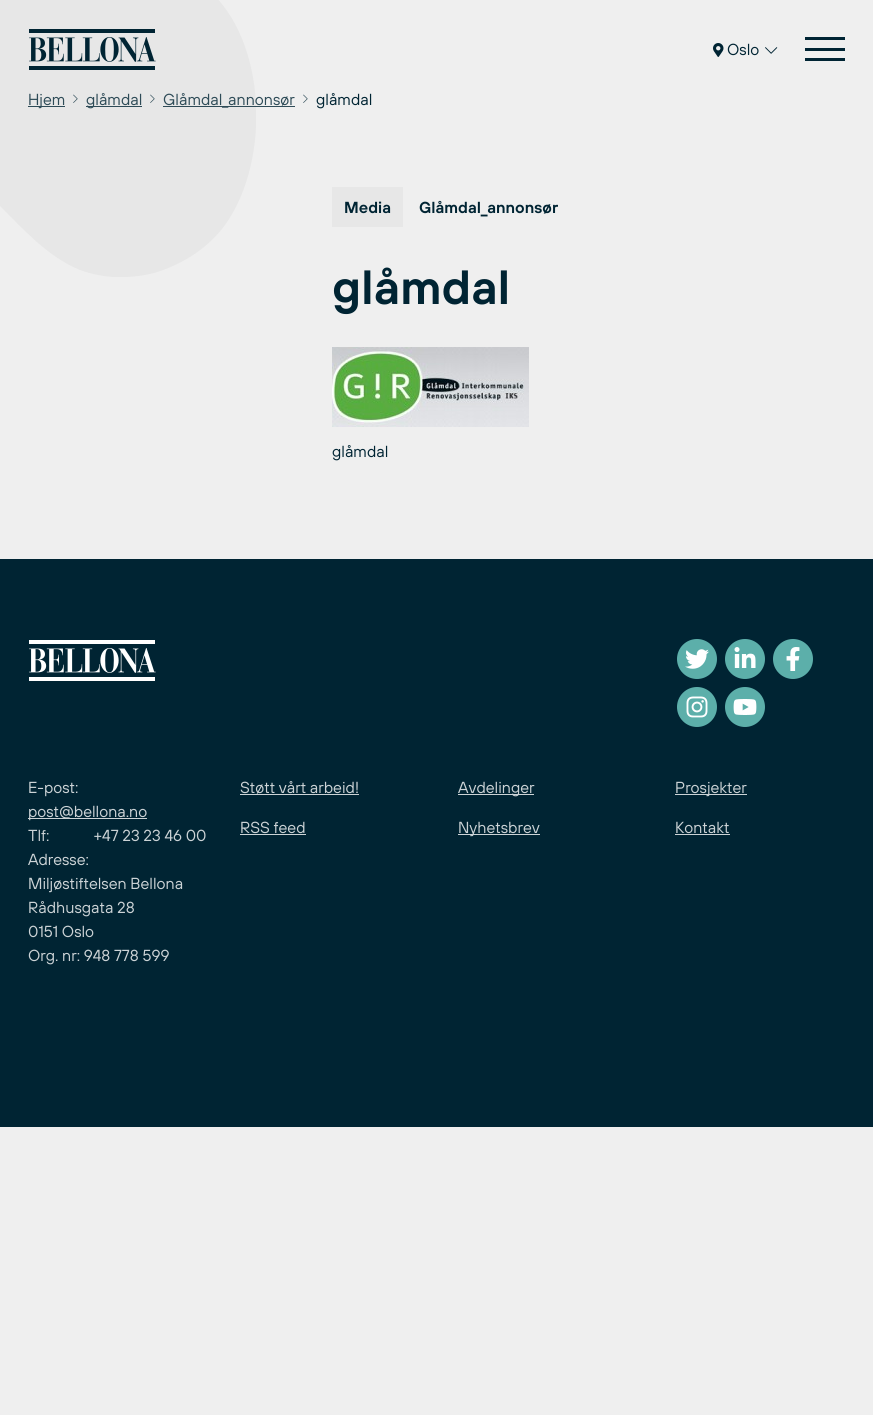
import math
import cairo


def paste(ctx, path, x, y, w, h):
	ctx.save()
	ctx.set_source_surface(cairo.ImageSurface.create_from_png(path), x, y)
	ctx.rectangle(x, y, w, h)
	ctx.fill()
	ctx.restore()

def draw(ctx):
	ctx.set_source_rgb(0.937, 0.937, 0.937)
	ctx.paint()
	ctx.save()
	ctx.rectangle(0, 0, 256, 277)
	ctx.clip()
	ctx.set_source_rgb(0.906, 0.906, 0.906)
	ctx.set_fill_rule(cairo.FILL_RULE_EVEN_ODD)
	ctx.new_path()
	ctx.move_to(214, -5)
	ctx.curve_to(269, 51, 269, 169, 222, 229)
	ctx.curve_to(205, 250, 181, 265, 154, 273)
	ctx.curve_to(130, 279, 104, 279, 80, 270)
	ctx.curve_to(48, 257, 24, 230, 0, 206)
	ctx.line_to(0, -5)
	ctx.close_path()
	ctx.fill()
	ctx.restore()
	paste(ctx, 'media/1.png', 29, 29, 127, 41)
	paste(ctx, 'media/2.png', 713, 43, 11, 14)
	ctx.select_font_face('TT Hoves')
	ctx.set_font_size(16)
	ctx.set_source_rgb(0, 0.141, 0.2)
	ctx.move_to(727, 55)
	ctx.show_text('Oslo')
	paste(ctx, 'media/3.png', 765, 47, 13, 7)
	ctx.rectangle(805, 37, 40, 3)
	ctx.rectangle(805, 48, 40, 3)
	ctx.rectangle(805, 58, 40, 3)
	ctx.fill()
	ctx.set_source_rgb(0.18, 0.294, 0.341)
	ctx.rectangle(28, 106, 37, 1)
	ctx.fill()
	ctx.move_to(28, 105)
	ctx.show_text('Hjem')
	paste(ctx, 'media/4.png', 73, 94, 5, 9)
	ctx.rectangle(86, 106, 56, 1)
	ctx.fill()
	ctx.move_to(86, 105)
	ctx.show_text('glåmdal')
	paste(ctx, 'media/4.png', 150, 94, 5, 9)
	ctx.set_source_rgba(0, 0.141, 0.2, 0.8)
	ctx.rectangle(163, 106, 132, 1)
	ctx.fill()
	ctx.set_source_rgb(0.18, 0.294, 0.341)
	ctx.move_to(163, 105)
	ctx.show_text('Glåmdal_annonsør')
	paste(ctx, 'media/5.png', 303, 94, 5, 9)
	ctx.set_source_rgb(0, 0.141, 0.2)
	ctx.move_to(316, 105)
	ctx.show_text('glåmdal')
	ctx.set_source_rgb(0.906, 0.906, 0.906)
	ctx.rectangle(332, 187, 71, 40)
	ctx.fill()
	ctx.select_font_face('TT Hoves SemiBold')
	ctx.set_source_rgb(0, 0.141, 0.2)
	ctx.move_to(344, 213)
	ctx.show_text('Media')
	ctx.move_to(419, 213)
	ctx.show_text('Glåmdal_annonsør')
	ctx.set_font_size(48)
	ctx.move_to(332, 304)
	ctx.show_text('glåmdal')
	paste(ctx, 'media/6.png', 332, 347, 197, 80)
	ctx.select_font_face('TT Hoves')
	ctx.set_font_size(16)
	ctx.move_to(332, 457)
	ctx.show_text('glåmdal')
	ctx.rectangle(0, 559, 873, 568)
	ctx.fill()
	paste(ctx, 'media/7.png', 29, 640, 127, 41)
	ctx.set_source_rgb(0.361, 0.686, 0.667)
	ctx.arc(697, 659, 20, 0, 2 * math.pi)
	ctx.fill()
	paste(ctx, 'media/8.png', 685, 649, 24, 20)
	ctx.arc(745, 659, 20, 0, 2 * math.pi)
	ctx.fill()
	paste(ctx, 'media/9.png', 734, 647, 22, 21)
	ctx.arc(793, 659, 20, 0, 2 * math.pi)
	ctx.fill()
	paste(ctx, 'media/10.png', 786, 647, 14, 24)
	ctx.arc(697, 707, 20, 0, 2 * math.pi)
	ctx.fill()
	paste(ctx, 'media/11.png', 686, 696, 22, 22)
	ctx.arc(745, 707, 20, 0, 2 * math.pi)
	ctx.fill()
	paste(ctx, 'media/12.png', 733, 699, 24, 16)
	ctx.set_source_rgb(0.8, 0.827, 0.839)
	ctx.move_to(28, 793)
	ctx.show_text('E-post:')
	ctx.rectangle(28, 818, 119, 1)
	ctx.fill()
	for x, y, s in [
		(28, 817, 'post@bellona.no'),
		(28, 841, 'Tlf:            +47 23 23 46 00'),
		(28, 865, 'Adresse:'),
		(28, 889, 'Miljøstiftelsen Bellona'),
		(28, 913, 'Rådhusgata 28'),
		(28, 937, '0151 Oslo'),
		(28, 961, 'Org. nr: 948 778 599'),
		(240, 793, 'Støtt vårt arbeid!'),
	]:
		ctx.move_to(x, y)
		ctx.show_text(s)
	ctx.rectangle(240, 794, 119, 1)
	ctx.fill()
	ctx.rectangle(458, 794, 76, 1)
	ctx.fill()
	ctx.move_to(458, 793)
	ctx.show_text('Avdelinger')
	ctx.rectangle(675, 794, 72, 1)
	ctx.fill()
	ctx.move_to(675, 793)
	ctx.show_text('Prosjekter')
	ctx.move_to(240, 833)
	ctx.show_text('RSS feed')
	ctx.rectangle(240, 834, 66, 1)
	ctx.fill()
	ctx.rectangle(458, 834, 82, 1)
	ctx.fill()
	ctx.move_to(458, 833)
	ctx.show_text('Nyhetsbrev')
	ctx.move_to(675, 833)
	ctx.show_text('Kontakt')
	ctx.rectangle(675, 834, 55, 1)
	ctx.fill()


surface = cairo.ImageSurface(cairo.FORMAT_RGB24, 873, 1415)
ctx = cairo.Context(surface)
options = cairo.FontOptions()
options.set_hint_metrics(cairo.HINT_METRICS_OFF)
options.set_hint_style(cairo.HINT_STYLE_NONE)
ctx.set_font_options(options)
ctx.set_miter_limit(4)
draw(ctx)
surface.write_to_png('image.png')
